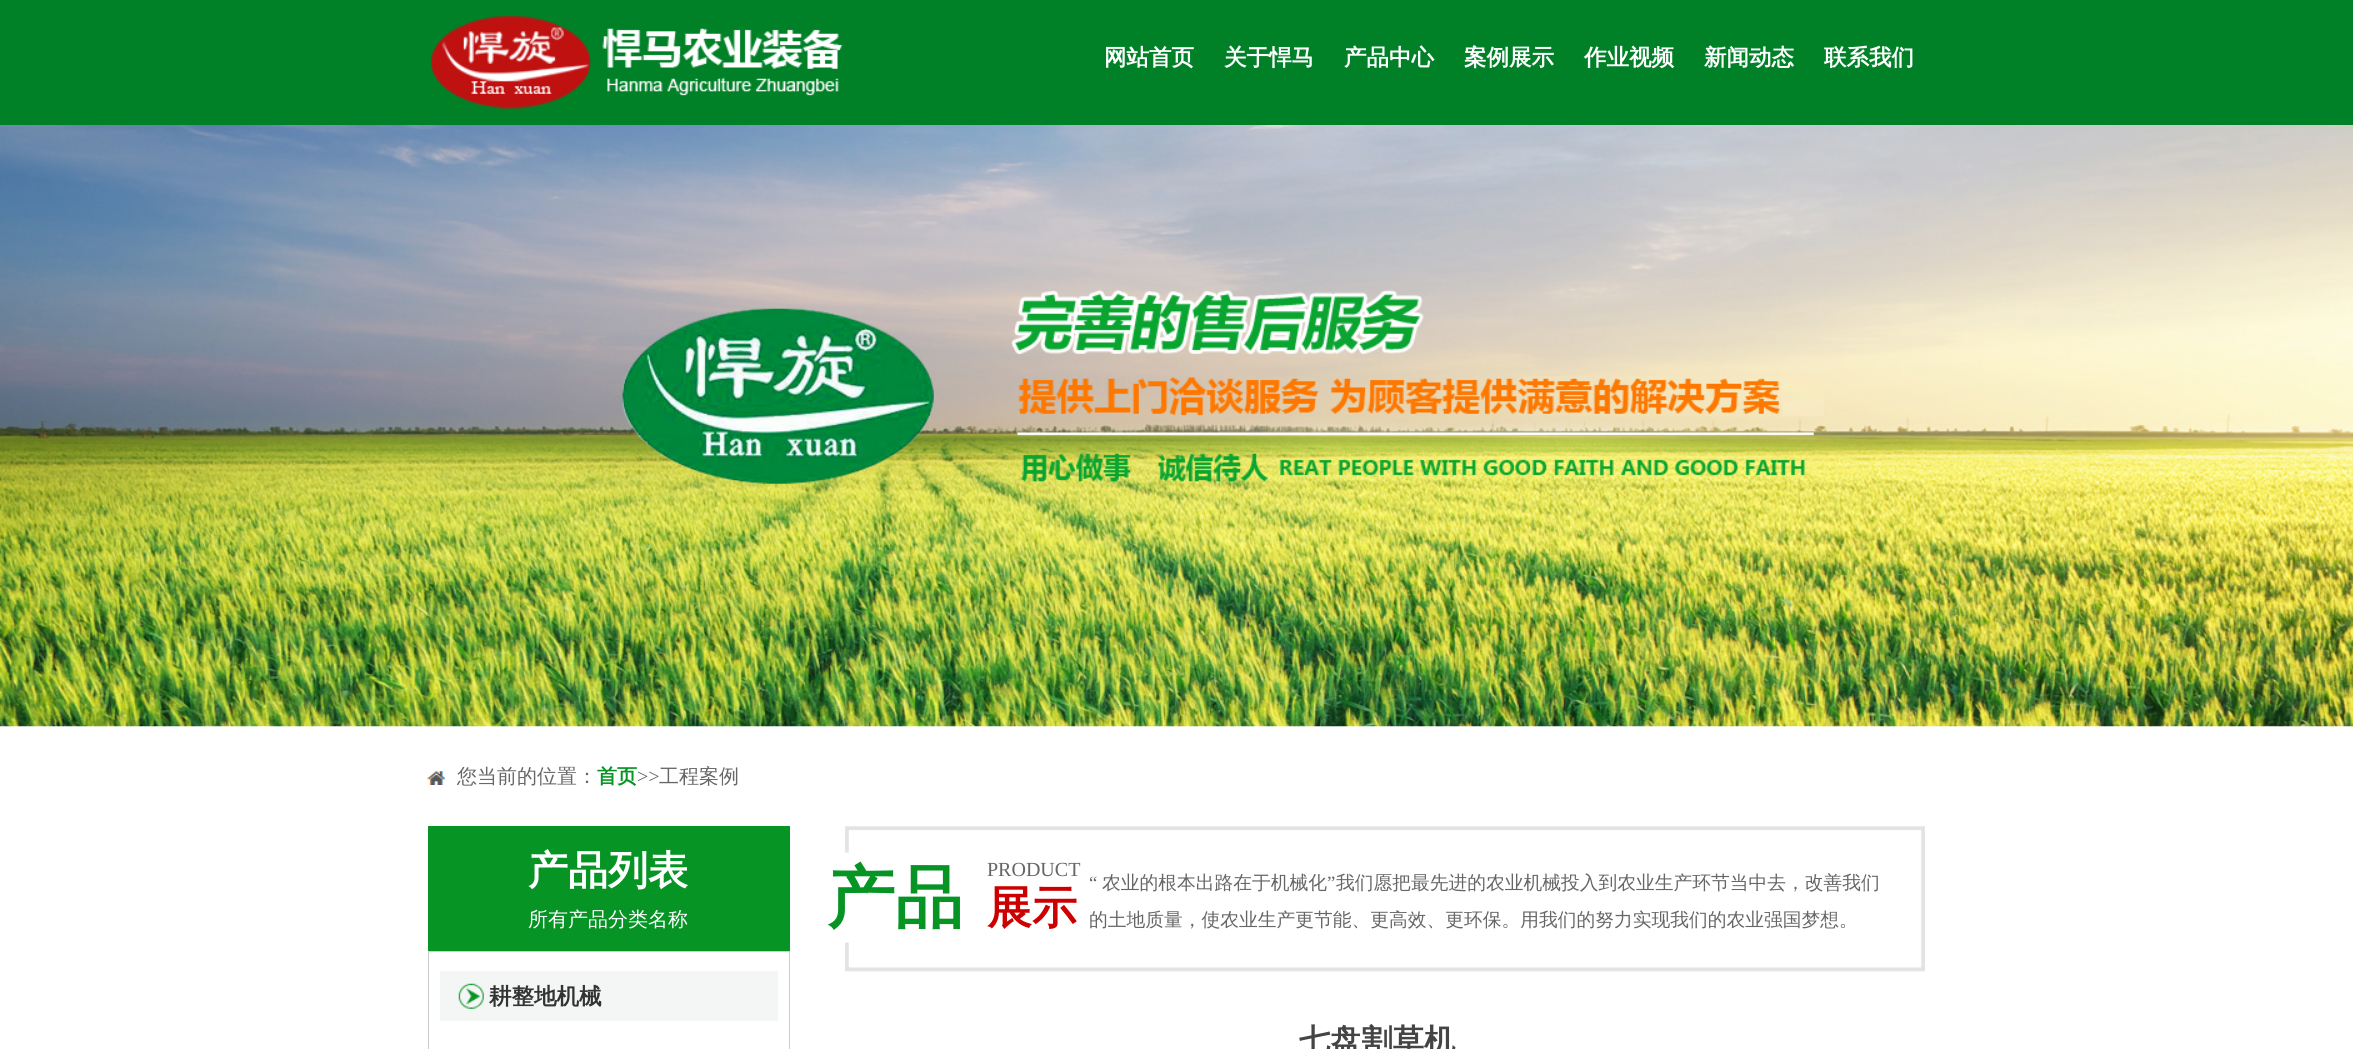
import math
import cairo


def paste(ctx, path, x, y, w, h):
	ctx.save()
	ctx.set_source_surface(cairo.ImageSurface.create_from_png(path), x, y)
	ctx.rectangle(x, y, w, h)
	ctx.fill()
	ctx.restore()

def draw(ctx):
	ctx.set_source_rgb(1, 1, 1)
	ctx.paint()
	ctx.set_source_rgb(0, 0.506, 0.157)
	ctx.rectangle(0, 0, 2353, 125)
	ctx.fill()
	paste(ctx, 'media/1.png', 431, 16, 412, 93)
	ctx.select_font_face('WenQuanYi Zen Hei', cairo.FONT_SLANT_NORMAL, cairo.FONT_WEIGHT_BOLD)
	ctx.set_font_size(22.5)
	ctx.set_source_rgb(1, 1, 1)
	for x, y, s in [
		(1104, 65, '网站首页'),
		(1224, 65, '关于悍马'),
		(1344, 65, '产品中心'),
		(1464, 65, '案例展示'),
		(1584, 65, '作业视频'),
		(1704, 65, '新闻动态'),
		(1824, 65, '联系我们'),
	]:
		ctx.move_to(x, y)
		ctx.show_text(s)
	paste(ctx, 'media/2.png', 0, 125, 2353, 602)
	paste(ctx, 'media/3.png', 427, 771, 18, 14)
	ctx.select_font_face('WenQuanYi Zen Hei Medium')
	ctx.set_font_size(20)
	ctx.set_source_rgb(0.4, 0.4, 0.4)
	ctx.move_to(457, 783)
	ctx.show_text('您当前的位置：')
	ctx.select_font_face('WenQuanYi Zen Hei', cairo.FONT_SLANT_NORMAL, cairo.FONT_WEIGHT_BOLD)
	ctx.set_source_rgb(0.024, 0.58, 0.141)
	ctx.move_to(597, 783)
	ctx.show_text('首页')
	ctx.select_font_face('Liberation Serif')
	ctx.set_source_rgb(0.4, 0.4, 0.4)
	ctx.move_to(637, 783)
	ctx.show_text('>>')
	ctx.select_font_face('WenQuanYi Zen Hei Medium')
	ctx.move_to(659, 783)
	ctx.show_text('工程案例')
	ctx.set_source_rgb(0.024, 0.58, 0.141)
	ctx.rectangle(428, 826, 362, 125)
	ctx.fill()
	ctx.select_font_face('WenQuanYi Zen Hei', cairo.FONT_SLANT_NORMAL, cairo.FONT_WEIGHT_BOLD)
	ctx.set_font_size(40)
	ctx.set_source_rgb(1, 1, 1)
	ctx.move_to(528, 884)
	ctx.show_text('产品列表')
	ctx.select_font_face('WenQuanYi Zen Hei Medium')
	ctx.set_font_size(20)
	ctx.move_to(528, 926)
	ctx.show_text('所有产品分类名称')
	ctx.rectangle(428.5, 951.5, 361, 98)
	ctx.set_source_rgb(0.8, 0.8, 0.8)
	ctx.set_line_width(1)
	ctx.stroke()
	ctx.set_source_rgb(0.957, 0.961, 0.961)
	ctx.rectangle(440, 971, 338, 50)
	ctx.fill()
	paste(ctx, 'media/4.png', 458, 983, 26, 26)
	ctx.select_font_face('WenQuanYi Zen Hei', cairo.FONT_SLANT_NORMAL, cairo.FONT_WEIGHT_BOLD)
	ctx.set_font_size(22.5)
	ctx.set_source_rgb(0.2, 0.2, 0.2)
	ctx.move_to(489, 1004)
	ctx.show_text('耕整地机械')
	paste(ctx, 'media/5.png', 845, 826, 1080, 146)
	ctx.set_font_size(68)
	ctx.set_source_rgb(0.024, 0.58, 0.141)
	ctx.move_to(827, 921)
	ctx.show_text('产品')
	ctx.select_font_face('Liberation Serif')
	ctx.set_font_size(20)
	ctx.set_source_rgb(0.4, 0.4, 0.4)
	ctx.move_to(987, 876)
	ctx.show_text('PRODUCT')
	ctx.select_font_face('WenQuanYi Zen Hei', cairo.FONT_SLANT_NORMAL, cairo.FONT_WEIGHT_BOLD)
	ctx.set_font_size(45)
	ctx.set_source_rgb(0.8, 0, 0)
	ctx.move_to(987, 923)
	ctx.show_text('展示')
	ctx.select_font_face('Liberation Serif')
	ctx.set_font_size(18.75)
	ctx.set_source_rgb(0.4, 0.4, 0.4)
	ctx.move_to(1089, 889)
	ctx.show_text('“')
	ctx.select_font_face('WenQuanYi Zen Hei Medium')
	ctx.move_to(1102, 889)
	ctx.show_text('农业的根本出路在于机械化')
	ctx.select_font_face('Liberation Serif')
	ctx.move_to(1327, 889)
	ctx.show_text('”')
	ctx.select_font_face('WenQuanYi Zen Hei Medium')
	ctx.move_to(1336, 889)
	ctx.show_text('我们愿把最先进的农业机械投入到农业生产环节当中去，改善我们')
	ctx.move_to(1089, 926)
	ctx.show_text('的土地质量，使农业生产更节能、更高效、更环保。用我们的努力实现我们的农业强国梦想。')
	ctx.select_font_face('WenQuanYi Zen Hei', cairo.FONT_SLANT_NORMAL, cairo.FONT_WEIGHT_BOLD)
	ctx.set_font_size(31.25)
	ctx.set_source_rgb(0.267, 0.267, 0.267)
	ctx.move_to(1299, 1051)
	ctx.show_text('七盘割草机')


surface = cairo.ImageSurface(cairo.FORMAT_RGB24, 2353, 1049)
ctx = cairo.Context(surface)
options = cairo.FontOptions()
options.set_hint_metrics(cairo.HINT_METRICS_OFF)
options.set_hint_style(cairo.HINT_STYLE_NONE)
ctx.set_font_options(options)
ctx.set_miter_limit(4)
draw(ctx)
surface.write_to_png('image.png')
